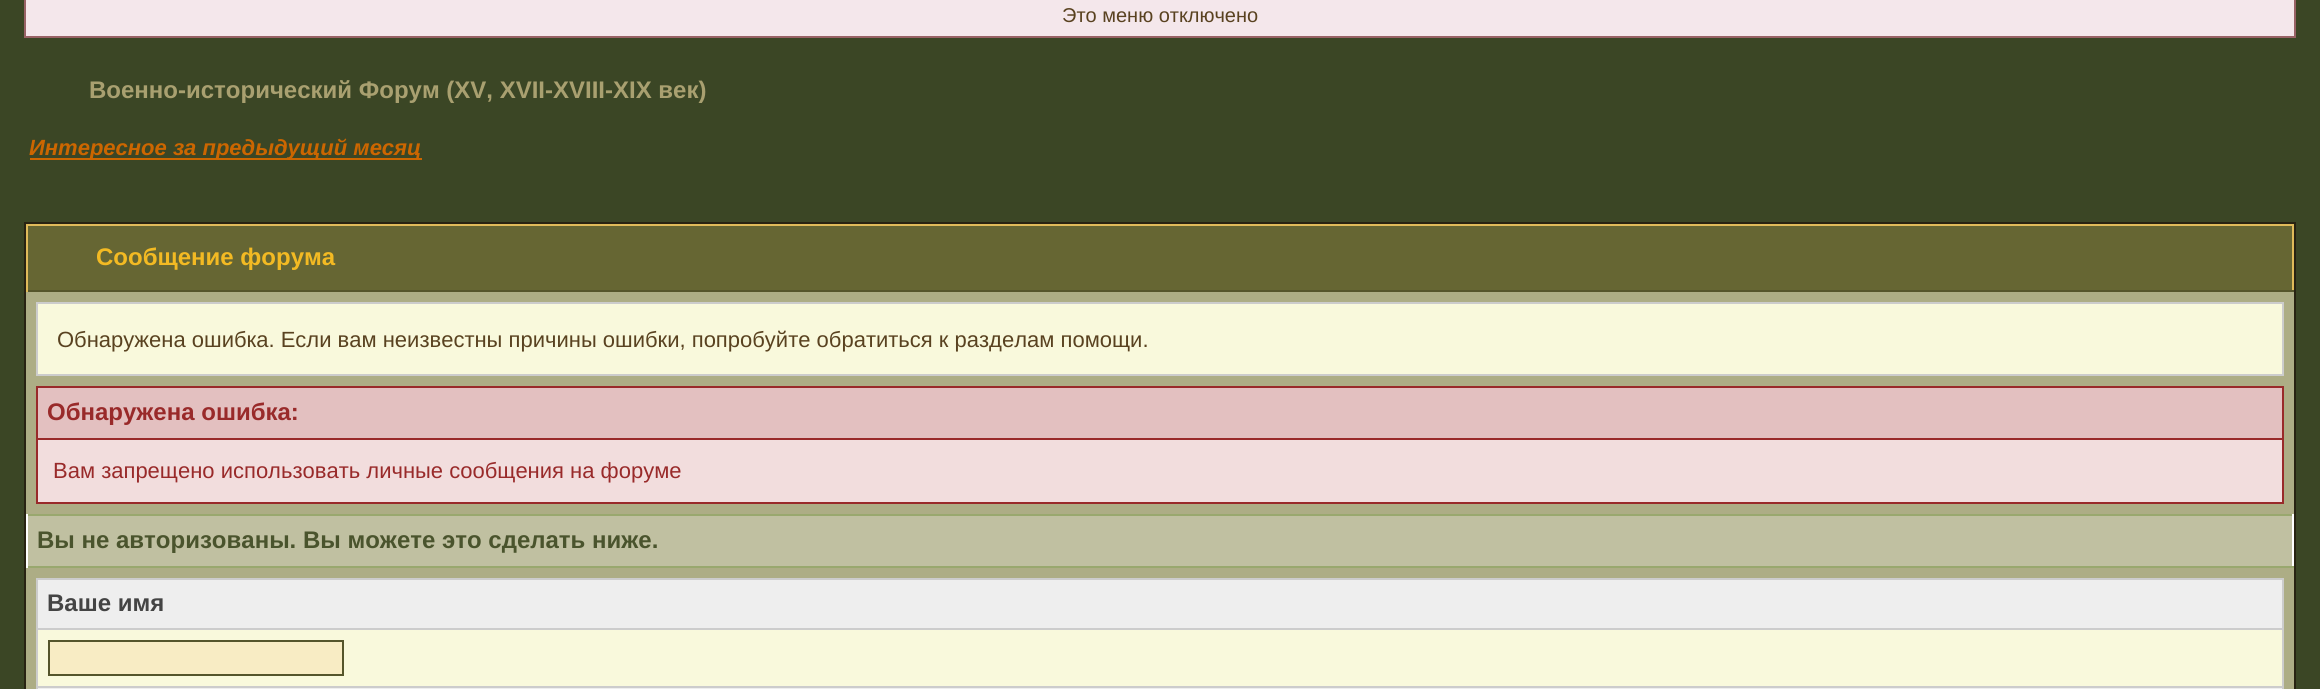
import math
import cairo


def draw(ctx):
	ctx.set_source_rgb(0.231, 0.275, 0.145)
	ctx.paint()
	ctx.set_source_rgb(0.957, 0.906, 0.918)
	ctx.rectangle(25, -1, 2270, 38)
	ctx.fill_preserve()
	ctx.set_source_rgb(0.596, 0.384, 0.396)
	ctx.stroke()
	ctx.select_font_face('Liberation Sans')
	ctx.set_font_size(20)
	ctx.set_source_rgb(0.349, 0.259, 0.125)
	ctx.move_to(1062, 22)
	ctx.show_text('Это меню отключено')
	ctx.select_font_face('Liberation Sans', cairo.FONT_SLANT_NORMAL, cairo.FONT_WEIGHT_BOLD)
	ctx.set_font_size(24)
	ctx.set_source_rgb(0.663, 0.627, 0.439)
	ctx.move_to(89, 98)
	ctx.show_text('Военно-исторический Форум (XV, XVII-XVIII-XIX век)')
	ctx.set_source_rgb(0.8, 0.4, 0)
	ctx.rectangle(30, 158, 392, 2)
	ctx.fill()
	ctx.select_font_face('Liberation Sans', cairo.FONT_SLANT_ITALIC, cairo.FONT_WEIGHT_BOLD)
	ctx.set_font_size(22)
	ctx.move_to(29, 155)
	ctx.show_text('Интересное за предыдущий месяц')
	ctx.set_source_rgb(0.678, 0.678, 0.522)
	ctx.rectangle(26, 292, 2268, 397)
	ctx.fill()
	ctx.rectangle(25, 223, 2270, 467)
	ctx.set_source_rgb(0.157, 0.137, 0.071)
	ctx.stroke()
	ctx.set_source_rgb(0.4, 0.4, 0.2)
	ctx.rectangle(28, 226, 2264, 64)
	ctx.fill()
	ctx.set_source_rgb(0.878, 0.733, 0.353)
	ctx.rectangle(26, 224, 2268, 2)
	ctx.rectangle(2292, 224, 2, 68)
	ctx.fill()
	ctx.set_source_rgb(0.333, 0.333, 0.169)
	ctx.rectangle(26, 290, 2268, 2)
	ctx.fill()
	ctx.set_source_rgb(0.878, 0.733, 0.353)
	ctx.rectangle(26, 224, 2, 68)
	ctx.fill()
	ctx.select_font_face('Liberation Sans', cairo.FONT_SLANT_NORMAL, cairo.FONT_WEIGHT_BOLD)
	ctx.set_font_size(24)
	ctx.set_source_rgb(0.953, 0.729, 0.137)
	ctx.move_to(96, 265)
	ctx.show_text('Сообщение форума')
	ctx.set_source_rgb(0.973, 0.973, 0.863)
	ctx.rectangle(37, 303, 2246, 72)
	ctx.fill_preserve()
	ctx.set_source_rgb(0.8, 0.8, 0.8)
	ctx.stroke()
	ctx.select_font_face('Liberation Sans')
	ctx.set_font_size(22)
	ctx.set_source_rgb(0.349, 0.259, 0.125)
	ctx.move_to(57, 347)
	ctx.show_text('Обнаружена ошибка. Если вам неизвестны причины ошибки, попробуйте обратиться к разделам помощи.')
	ctx.set_source_rgb(0.949, 0.867, 0.867)
	ctx.rectangle(38, 440, 2244, 62)
	ctx.fill()
	ctx.set_source_rgb(0.6, 0.165, 0.165)
	ctx.rectangle(2282, 386, 2, 118)
	ctx.rectangle(36, 502, 2248, 2)
	ctx.rectangle(36, 386, 2, 118)
	ctx.fill()
	ctx.set_source_rgb(0.89, 0.753, 0.753)
	ctx.rectangle(38, 388, 2244, 50)
	ctx.fill()
	ctx.set_source_rgb(0.6, 0.165, 0.165)
	ctx.rectangle(38, 386, 2244, 2)
	ctx.rectangle(38, 438, 2244, 2)
	ctx.fill()
	ctx.select_font_face('Liberation Sans', cairo.FONT_SLANT_NORMAL, cairo.FONT_WEIGHT_BOLD)
	ctx.set_font_size(24)
	ctx.move_to(47, 420)
	ctx.show_text('Обнаружена ошибка:')
	ctx.select_font_face('Liberation Sans')
	ctx.set_font_size(22)
	ctx.move_to(53, 478)
	ctx.show_text('Вам запрещено использовать личные сообщения на форуме')
	ctx.set_source_rgb(0.753, 0.753, 0.631)
	ctx.rectangle(28, 516, 2264, 50)
	ctx.fill()
	ctx.set_source_rgb(0.6, 0.659, 0.431)
	ctx.rectangle(26, 514, 2268, 2)
	ctx.fill()
	ctx.set_source_rgb(1, 1, 1)
	ctx.rectangle(2292, 514, 2, 54)
	ctx.fill()
	ctx.set_source_rgb(0.6, 0.659, 0.431)
	ctx.rectangle(26, 566, 2268, 2)
	ctx.fill()
	ctx.set_source_rgb(1, 1, 1)
	ctx.rectangle(26, 514, 2, 54)
	ctx.fill()
	ctx.select_font_face('Liberation Sans', cairo.FONT_SLANT_NORMAL, cairo.FONT_WEIGHT_BOLD)
	ctx.set_font_size(24)
	ctx.set_source_rgb(0.29, 0.329, 0.176)
	ctx.move_to(37, 548)
	ctx.show_text('Вы не авторизованы. Вы можете это сделать ниже.')
	ctx.set_source_rgb(0.973, 0.973, 0.863)
	ctx.rectangle(38, 630, 2244, 56)
	ctx.fill()
	ctx.set_source_rgb(0.8, 0.8, 0.8)
	ctx.rectangle(2282, 578, 2, 111)
	ctx.rectangle(36, 578, 2, 111)
	ctx.fill()
	ctx.set_source_rgb(0.933, 0.933, 0.933)
	ctx.rectangle(38, 580, 2244, 48)
	ctx.fill()
	ctx.set_source_rgb(0.8, 0.8, 0.8)
	ctx.rectangle(38, 578, 2244, 2)
	ctx.rectangle(38, 628, 2244, 2)
	ctx.fill()
	ctx.set_source_rgb(0.267, 0.267, 0.267)
	ctx.move_to(47, 611)
	ctx.show_text('Ваше имя')
	ctx.set_source_rgb(0.969, 0.925, 0.769)
	ctx.rectangle(49, 641, 294, 34)
	ctx.fill_preserve()
	ctx.set_source_rgb(0.333, 0.333, 0.169)
	ctx.stroke()
	ctx.set_source_rgb(0.933, 0.933, 0.933)
	ctx.rectangle(38, 688, 2244, 1)
	ctx.fill()
	ctx.set_source_rgb(0.8, 0.8, 0.8)
	ctx.rectangle(38, 686, 2244, 2)
	ctx.fill()


surface = cairo.ImageSurface(cairo.FORMAT_RGB24, 2320, 689)
ctx = cairo.Context(surface)
options = cairo.FontOptions()
options.set_hint_metrics(cairo.HINT_METRICS_OFF)
options.set_hint_style(cairo.HINT_STYLE_NONE)
ctx.set_font_options(options)
ctx.set_miter_limit(4)
draw(ctx)
surface.write_to_png('image.png')
